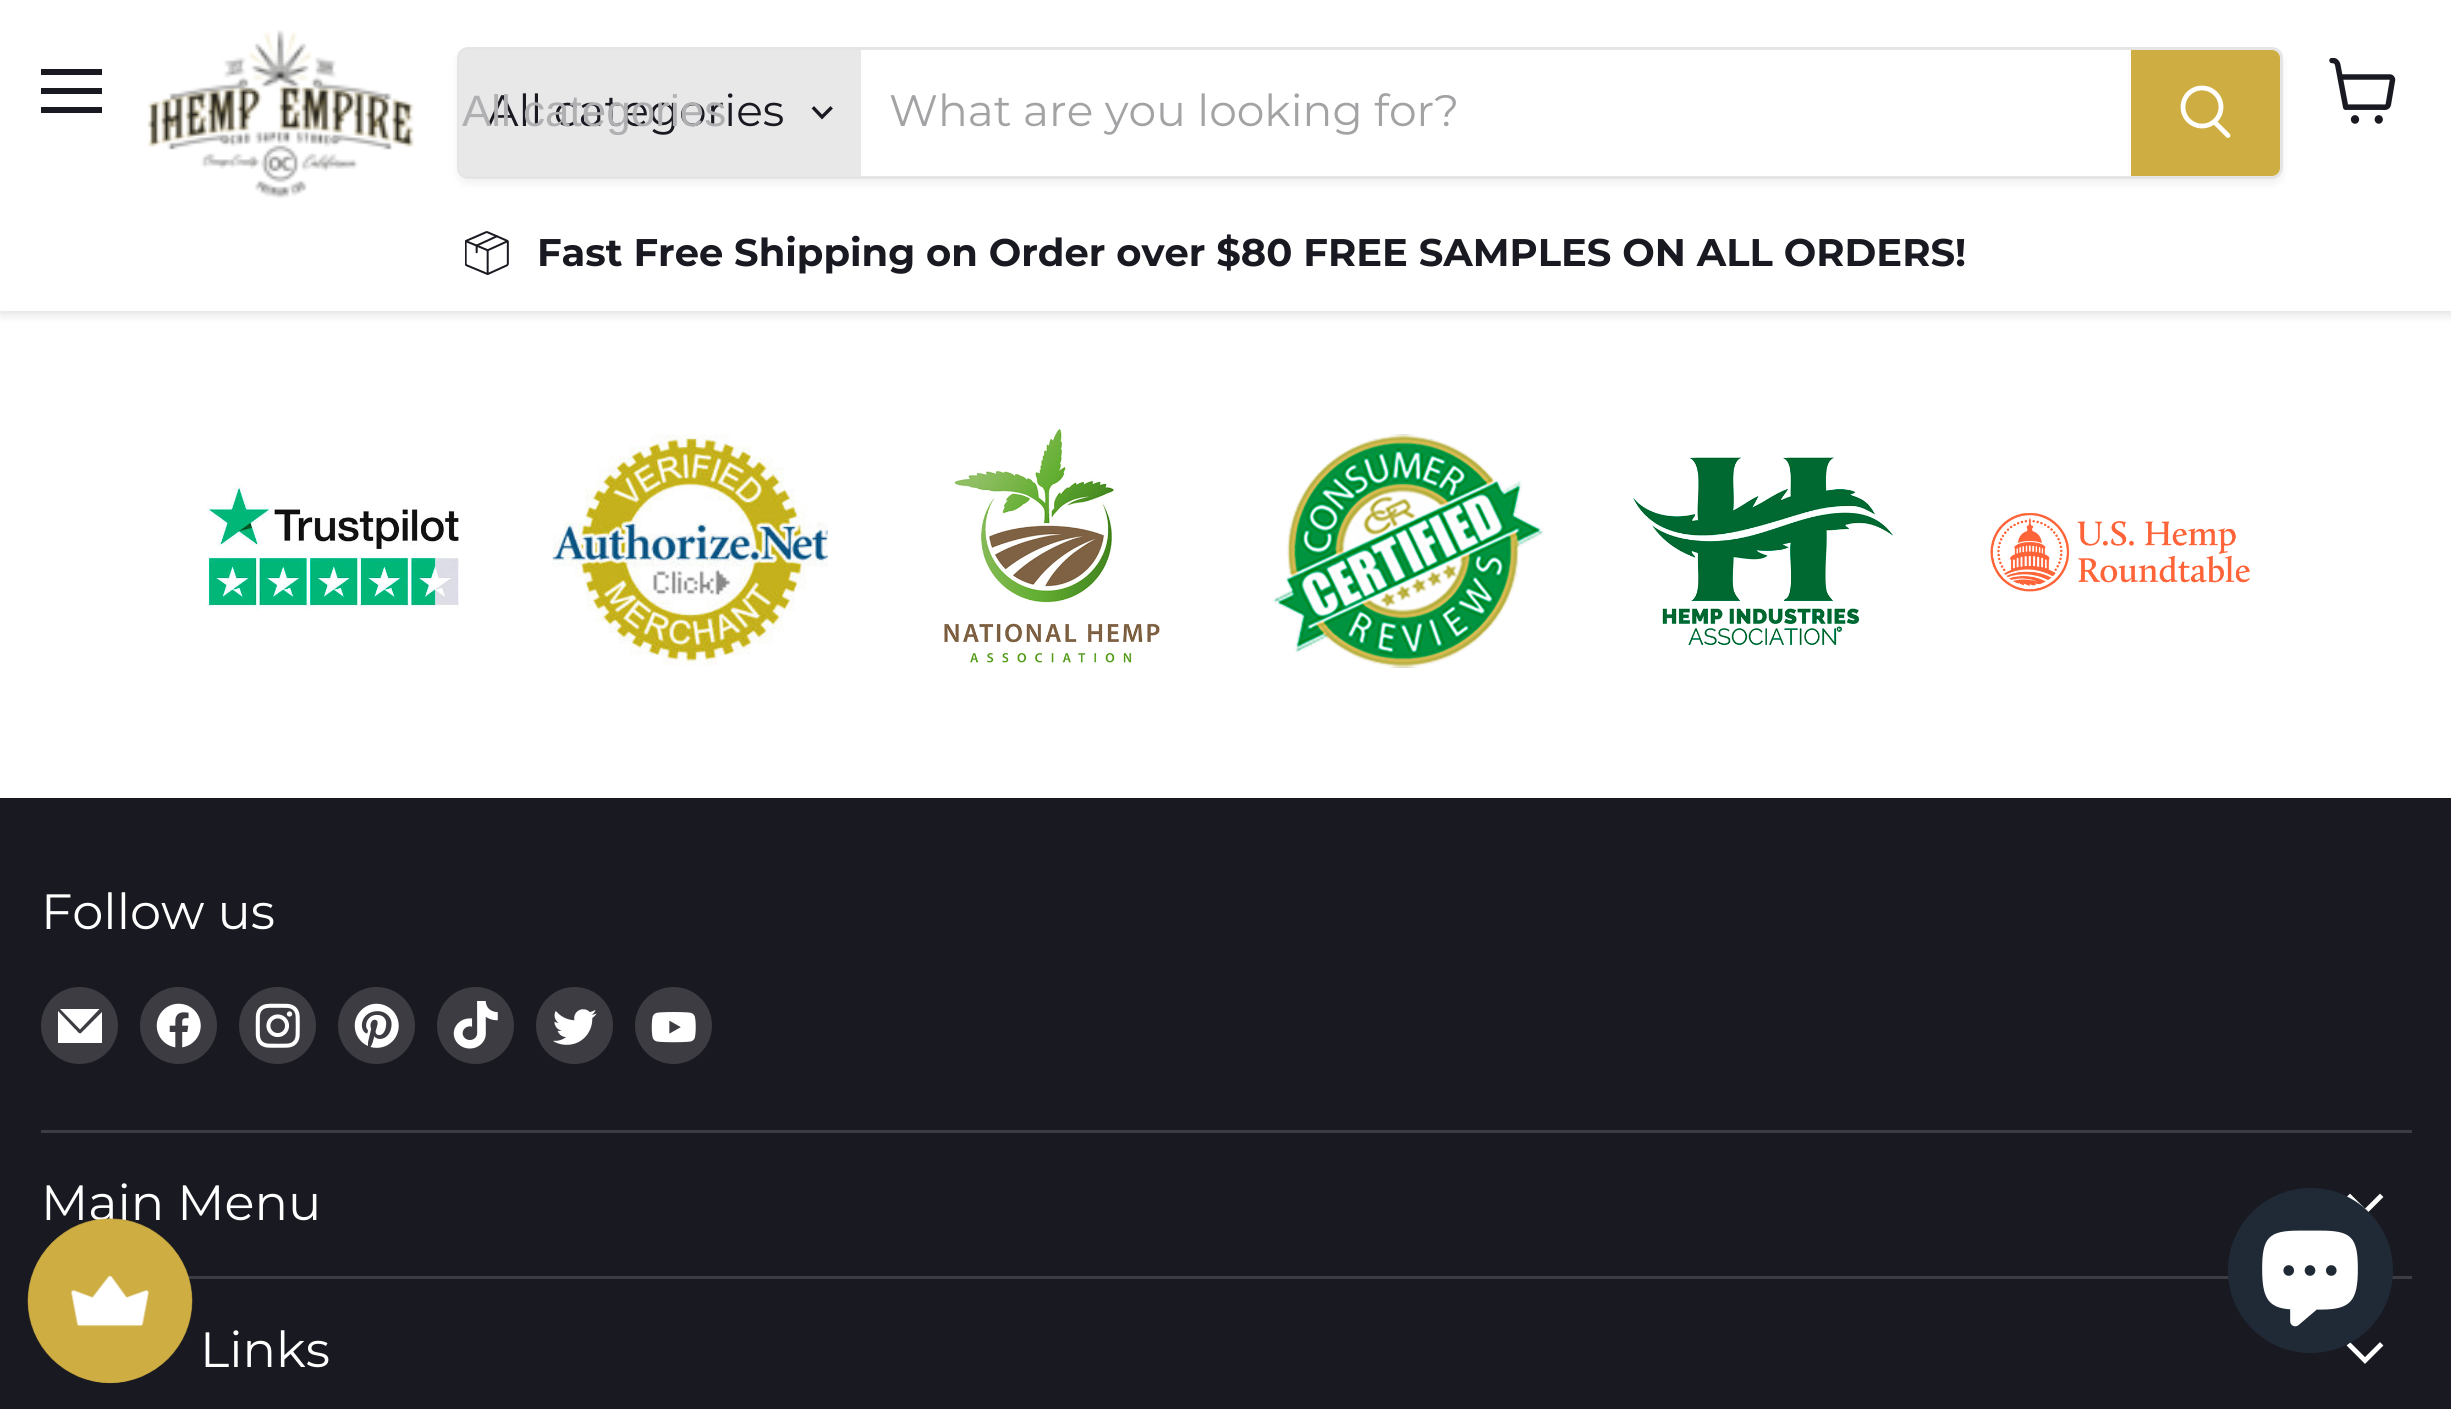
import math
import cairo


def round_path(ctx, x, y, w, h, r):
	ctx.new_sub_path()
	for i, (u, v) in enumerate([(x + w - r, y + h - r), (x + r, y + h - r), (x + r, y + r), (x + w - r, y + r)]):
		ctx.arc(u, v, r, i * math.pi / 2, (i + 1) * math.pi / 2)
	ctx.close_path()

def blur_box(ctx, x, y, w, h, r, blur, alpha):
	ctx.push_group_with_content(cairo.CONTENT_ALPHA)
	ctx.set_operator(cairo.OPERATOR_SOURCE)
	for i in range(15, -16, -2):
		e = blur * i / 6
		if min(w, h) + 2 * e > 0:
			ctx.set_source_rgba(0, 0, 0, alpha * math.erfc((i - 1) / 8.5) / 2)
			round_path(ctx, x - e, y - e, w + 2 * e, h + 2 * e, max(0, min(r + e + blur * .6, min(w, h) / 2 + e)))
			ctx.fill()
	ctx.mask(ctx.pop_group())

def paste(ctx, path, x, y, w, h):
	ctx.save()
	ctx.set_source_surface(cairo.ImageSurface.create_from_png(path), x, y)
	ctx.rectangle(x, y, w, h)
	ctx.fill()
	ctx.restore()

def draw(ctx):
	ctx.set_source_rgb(1, 1, 1)
	ctx.paint()
	ctx.set_source_rgb(0.502, 0.502, 0.502)
	blur_box(ctx, 0, 3, 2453, 311, 0, 5.5, 0.25)
	ctx.set_source_rgb(1, 1, 1)
	ctx.rectangle(0, 0, 2451, 311)
	ctx.fill()
	ctx.set_source_rgb(0.098, 0.098, 0.129)
	ctx.rectangle(41, 69, 61, 6)
	ctx.rectangle(41, 88, 61, 6)
	ctx.rectangle(41, 107, 61, 6)
	ctx.fill()
	paste(ctx, 'media/1.png', 147, 30, 267, 168)
	ctx.save()
	ctx.set_fill_rule(cairo.FILL_RULE_EVEN_ODD)
	ctx.new_path()
	ctx.move_to(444, 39)
	ctx.line_to(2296, 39)
	ctx.line_to(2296, 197)
	ctx.line_to(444, 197)
	ctx.close_path()
	ctx.move_to(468, 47)
	ctx.line_to(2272, 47)
	ctx.curve_to(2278, 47, 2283, 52, 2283, 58)
	ctx.line_to(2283, 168)
	ctx.curve_to(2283, 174, 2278, 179, 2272, 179)
	ctx.line_to(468, 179)
	ctx.curve_to(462, 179, 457, 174, 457, 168)
	ctx.line_to(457, 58)
	ctx.curve_to(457, 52, 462, 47, 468, 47)
	ctx.close_path()
	ctx.clip()
	ctx.set_source_rgb(0.502, 0.502, 0.502)
	blur_box(ctx, 457, 52, 1826, 132, 11, 4, 0.11)
	ctx.restore()
	round_path(ctx, 458.5, 48.5, 1823, 129, 9.5)
	ctx.set_source_rgba(0.502, 0.502, 0.502, 0.2)
	ctx.set_line_width(3)
	ctx.stroke()
	ctx.set_source_rgb(0.91, 0.91, 0.914)
	ctx.new_path()
	ctx.move_to(467, 50)
	ctx.line_to(861, 50)
	ctx.line_to(861, 176)
	ctx.line_to(467, 176)
	ctx.curve_to(462.5, 176, 459, 172.5, 459, 168)
	ctx.line_to(459, 58)
	ctx.curve_to(459, 53.5, 462.5, 50, 467, 50)
	ctx.close_path()
	ctx.fill()
	ctx.select_font_face('Montserrat')
	ctx.set_font_size(44)
	ctx.set_source_rgb(0.098, 0.098, 0.129)
	ctx.move_to(487, 126)
	ctx.show_text('All categories')
	ctx.select_font_face('Liberation Sans')
	ctx.set_source_rgb(0.69, 0.69, 0.702)
	ctx.move_to(462, 126)
	ctx.show_text('All categories')
	ctx.new_path()
	ctx.move_to(822, 117)
	ctx.line_to(830.5, 108.5)
	ctx.move_to(822, 117)
	ctx.line_to(814, 108.5)
	ctx.set_source_rgb(0.098, 0.098, 0.129)
	ctx.set_line_width(3.4)
	ctx.set_line_cap(cairo.LINE_CAP_SQUARE)
	ctx.stroke()
	ctx.select_font_face('Montserrat')
	ctx.set_source_rgb(0.639, 0.639, 0.651)
	ctx.move_to(889, 126)
	ctx.show_text('What are you looking for?')
	ctx.set_source_rgb(0.808, 0.678, 0.259)
	ctx.new_path()
	ctx.move_to(2132.5, 51.5)
	ctx.line_to(2272, 51.5)
	ctx.curve_to(2275.5, 51.5, 2278.5, 54.5, 2278.5, 58)
	ctx.line_to(2278.5, 168)
	ctx.curve_to(2278.5, 171.5, 2275.5, 174.5, 2272, 174.5)
	ctx.line_to(2132.5, 174.5)
	ctx.close_path()
	ctx.fill_preserve()
	ctx.set_line_width(3)
	ctx.set_line_cap(cairo.LINE_CAP_BUTT)
	ctx.stroke()
	ctx.new_path()
	ctx.move_to(2228, 135.5)
	ctx.line_to(2215, 122.5)
	ctx.set_source_rgb(1, 1, 1)
	ctx.set_line_width(4.8)
	ctx.set_line_cap(cairo.LINE_CAP_ROUND)
	ctx.stroke()
	ctx.arc(2202, 107, 19, 0, 2 * math.pi)
	ctx.set_line_cap(cairo.LINE_CAP_BUTT)
	ctx.stroke()
	paste(ctx, 'media/2.png', 465, 231, 44, 44)
	ctx.select_font_face('Montserrat', cairo.FONT_SLANT_NORMAL, cairo.FONT_WEIGHT_BOLD)
	ctx.set_font_size(38.5)
	ctx.set_source_rgb(0.098, 0.098, 0.129)
	ctx.move_to(537, 266)
	ctx.show_text('Fast Free Shipping on Order over $80 FREE SAMPLES ON ALL ORDERS!')
	paste(ctx, 'media/3.png', 2329, 58, 67, 66)
	paste(ctx, 'media/4.png', 206, 483, 253, 128)
	paste(ctx, 'media/5.png', 552, 434, 276, 232)
	paste(ctx, 'media/6.png', 944, 429, 216, 234)
	paste(ctx, 'media/7.png', 1272, 434, 271, 234)
	paste(ctx, 'media/8.png', 1633, 457, 260, 189)
	paste(ctx, 'media/9.png', 1990, 513, 260, 79)
	ctx.rectangle(0, 798, 2451, 611)
	ctx.fill()
	ctx.set_source_rgb(0.235, 0.235, 0.259)
	ctx.rectangle(41, 1130, 2371, 3)
	ctx.fill()
	ctx.select_font_face('Montserrat')
	ctx.set_font_size(49.5)
	ctx.set_source_rgb(1, 1, 1)
	ctx.move_to(41, 929)
	ctx.show_text('Follow us')
	ctx.set_source_rgb(0.235, 0.235, 0.259)
	ctx.new_path()
	ctx.arc(79.5, 1025.5, 38.5, 0, 2 * math.pi)
	ctx.fill()
	ctx.set_source_rgb(1, 1, 1)
	ctx.new_path()
	ctx.move_to(81, 1033)
	ctx.curve_to(79, 1035, 76, 1029, 75, 1029)
	ctx.line_to(58, 1011)
	ctx.line_to(58, 1043)
	ctx.line_to(102, 1043)
	ctx.line_to(102, 1012)
	ctx.close_path()
	ctx.fill()
	ctx.new_path()
	ctx.move_to(99.5, 1009)
	ctx.line_to(60, 1009)
	ctx.line_to(80, 1029.5)
	ctx.close_path()
	ctx.fill()
	ctx.set_source_rgb(0.235, 0.235, 0.259)
	ctx.arc(178.5, 1025.5, 38.5, 0, 2 * math.pi)
	ctx.fill()
	paste(ctx, 'media/10.png', 156, 1003, 45, 45)
	ctx.arc(277.5, 1025.5, 38.5, 0, 2 * math.pi)
	ctx.fill()
	paste(ctx, 'media/11.png', 255, 1003, 45, 45)
	ctx.arc(376.5, 1025.5, 38.5, 0, 2 * math.pi)
	ctx.fill()
	paste(ctx, 'media/12.png', 354, 1003, 45, 45)
	ctx.arc(475.5, 1025.5, 38.5, 0, 2 * math.pi)
	ctx.fill()
	paste(ctx, 'media/13.png', 453, 1001, 45, 48)
	ctx.arc(574.5, 1025.5, 38.5, 0, 2 * math.pi)
	ctx.fill()
	paste(ctx, 'media/14.png', 553, 1009, 44, 36)
	ctx.arc(673.5, 1025.5, 38.5, 0, 2 * math.pi)
	ctx.fill()
	paste(ctx, 'media/15.png', 651, 1012, 45, 31)
	ctx.rectangle(188, 1276, 2224, 3)
	ctx.fill()
	ctx.set_source_rgb(1, 1, 1)
	ctx.move_to(41, 1220)
	ctx.show_text('Main Menu')
	ctx.new_path()
	ctx.move_to(2365, 1212)
	ctx.line_to(2380, 1197)
	ctx.move_to(2365, 1212)
	ctx.line_to(2350, 1197)
	ctx.set_line_cap(cairo.LINE_CAP_SQUARE)
	ctx.stroke()
	ctx.move_to(200, 1367)
	ctx.show_text('Links')
	ctx.new_path()
	ctx.move_to(2365, 1360.5)
	ctx.line_to(2380, 1345.5)
	ctx.move_to(2365, 1360.5)
	ctx.line_to(2350, 1345.5)
	ctx.stroke()
	ctx.set_source_rgb(0.125, 0.165, 0.212)
	ctx.arc(2310.5, 1270.5, 82.5, 0, 2 * math.pi)
	ctx.fill()
	paste(ctx, 'media/16.png', 2262, 1230, 96, 97)
	paste(ctx, 'media/17.png', 27, 1218, 166, 166)


surface = cairo.ImageSurface(cairo.FORMAT_RGB24, 2451, 1409)
ctx = cairo.Context(surface)
options = cairo.FontOptions()
options.set_hint_metrics(cairo.HINT_METRICS_OFF)
options.set_hint_style(cairo.HINT_STYLE_NONE)
ctx.set_font_options(options)
ctx.set_miter_limit(4)
draw(ctx)
surface.write_to_png('image.png')
